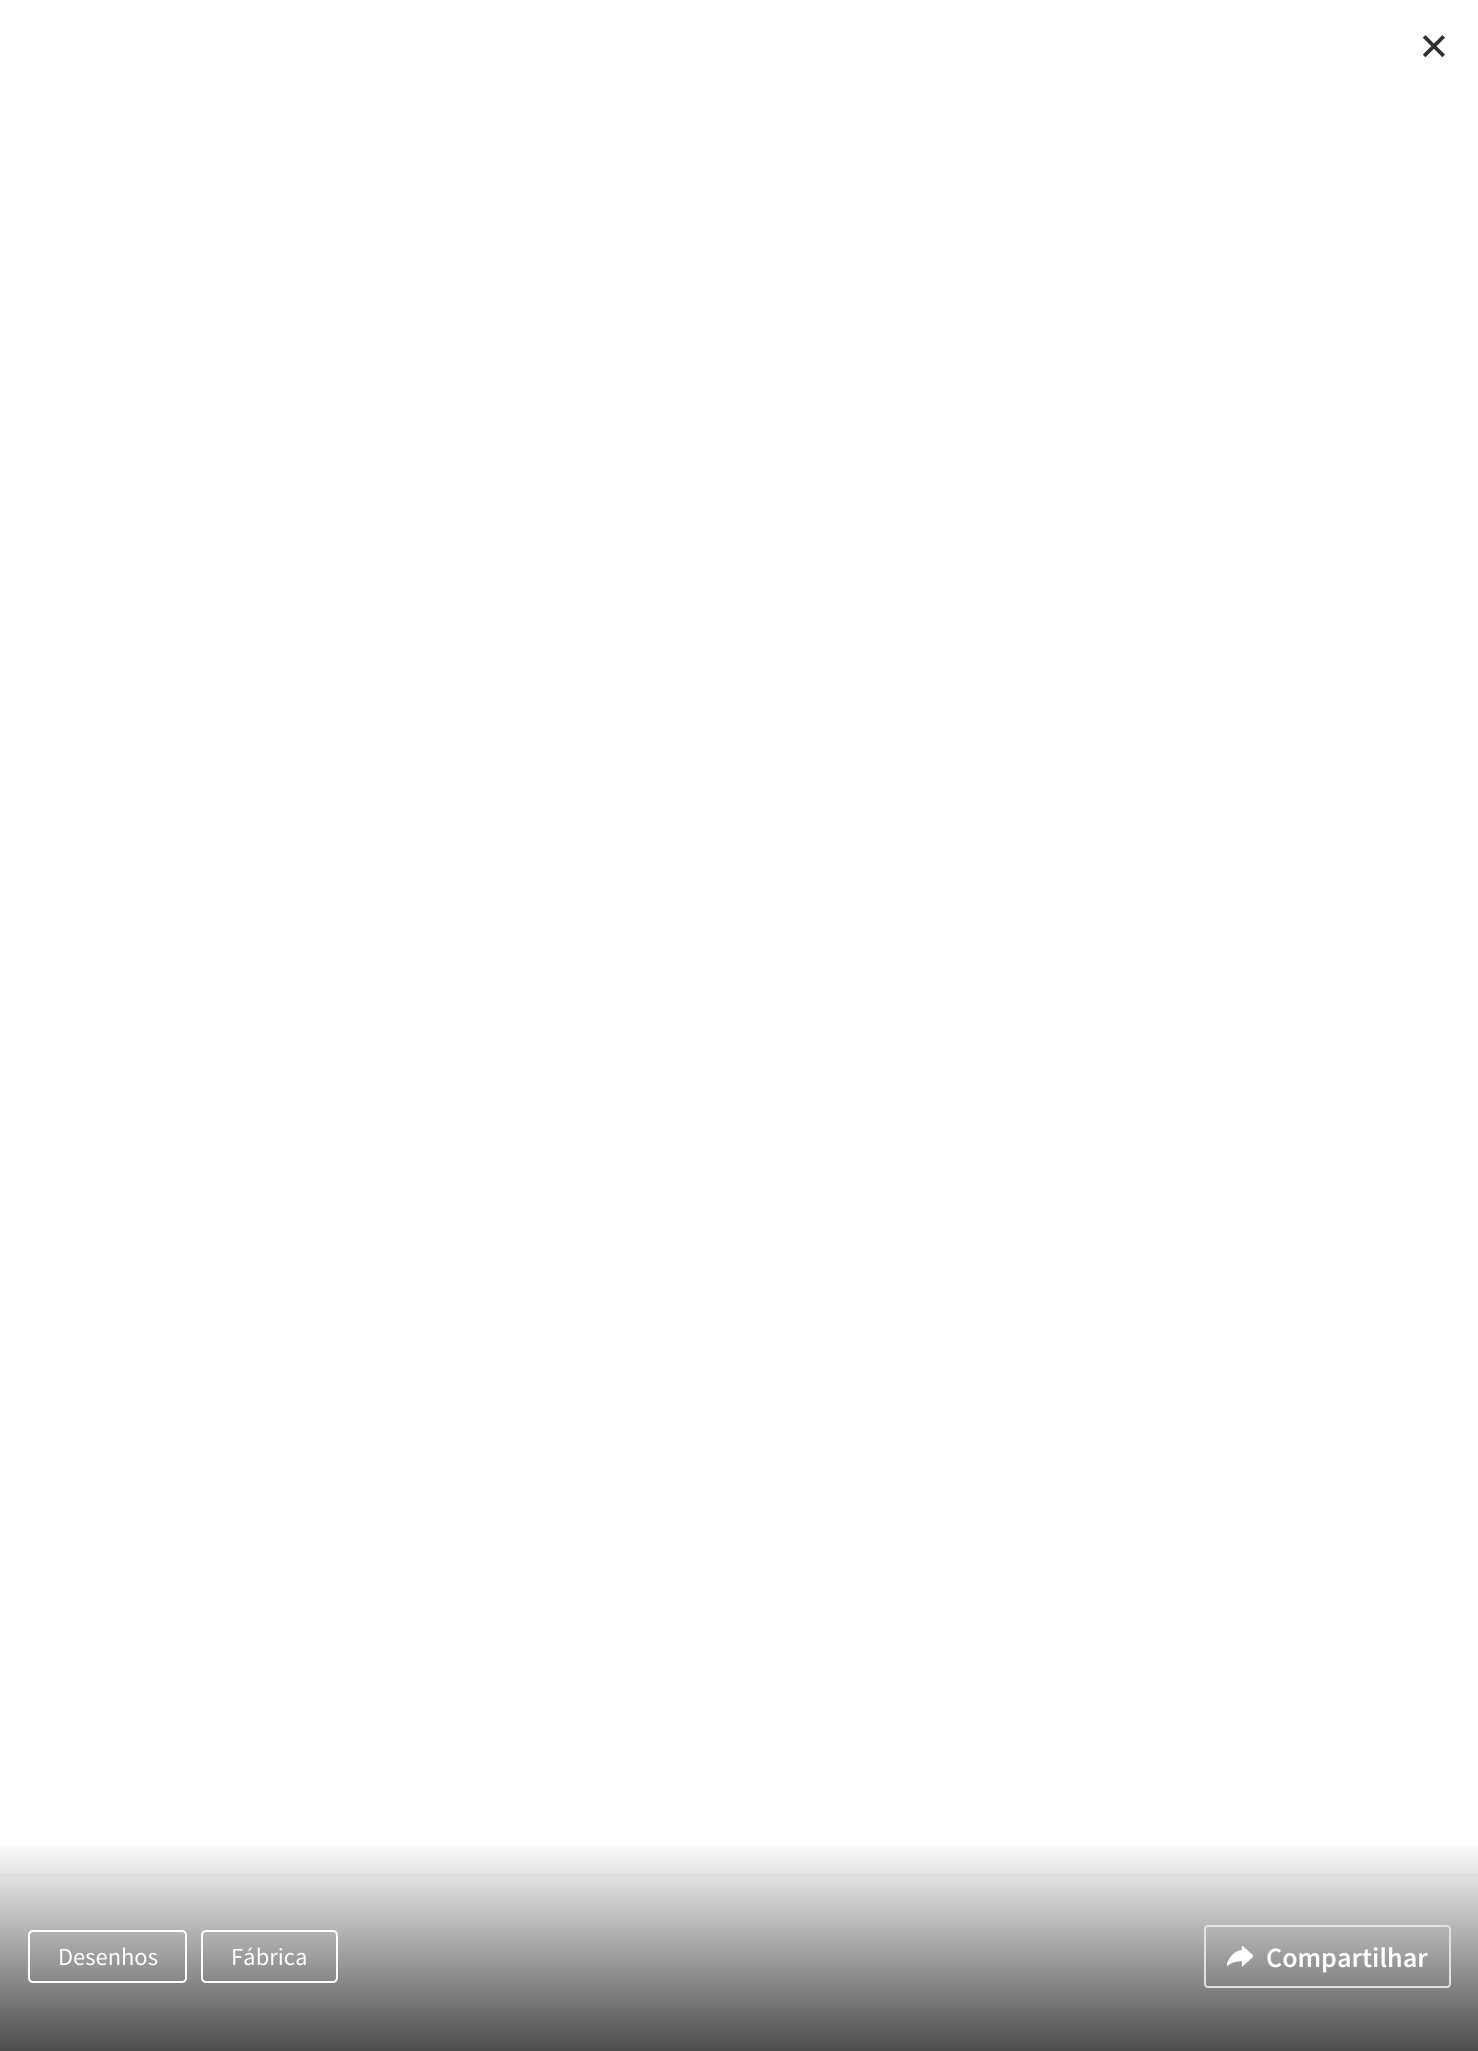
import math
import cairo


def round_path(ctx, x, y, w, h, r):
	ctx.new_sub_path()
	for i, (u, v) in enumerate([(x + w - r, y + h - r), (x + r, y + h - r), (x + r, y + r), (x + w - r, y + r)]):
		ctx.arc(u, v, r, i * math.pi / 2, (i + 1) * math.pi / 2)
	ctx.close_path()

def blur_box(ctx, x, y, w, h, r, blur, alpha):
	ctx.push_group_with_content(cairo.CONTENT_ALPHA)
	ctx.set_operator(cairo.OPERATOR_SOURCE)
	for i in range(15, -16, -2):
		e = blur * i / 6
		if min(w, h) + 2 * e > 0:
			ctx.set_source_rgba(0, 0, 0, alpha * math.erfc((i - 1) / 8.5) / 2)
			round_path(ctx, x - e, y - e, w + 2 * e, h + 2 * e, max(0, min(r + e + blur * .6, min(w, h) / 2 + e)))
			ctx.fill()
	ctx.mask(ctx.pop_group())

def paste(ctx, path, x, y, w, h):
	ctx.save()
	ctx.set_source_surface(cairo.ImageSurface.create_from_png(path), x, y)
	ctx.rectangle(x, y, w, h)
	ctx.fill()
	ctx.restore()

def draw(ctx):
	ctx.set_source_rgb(1, 1, 1)
	ctx.paint()
	ctx.select_font_face('DejaVu Sans')
	ctx.set_font_size(38)
	ctx.set_source_rgb(0.188, 0.188, 0.188)
	ctx.move_to(1418, 60)
	ctx.show_text('✕')
	ctx.save()
	ctx.rectangle(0, 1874, 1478, 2)
	ctx.clip()
	ctx.set_source_rgb(0, 0, 0)
	blur_box(ctx, 0, 1876, 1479, 175, 0, 2.5, 0.1)
	ctx.restore()
	gradient = cairo.LinearGradient(739, 2051, 739, 1841)
	gradient.add_color_stop_rgba(0, 0, 0, 0, 0.7)
	gradient.add_color_stop_rgba(1, 0, 0, 0, 0)
	ctx.set_source(gradient)
	ctx.rectangle(0, 1847, 1478, 204)
	ctx.fill()
	round_path(ctx, 29, 1931, 157, 51, 4)
	ctx.set_source_rgb(1, 1, 1)
	ctx.stroke()
	ctx.select_font_face('Source Sans Pro')
	ctx.set_font_size(24.5)
	ctx.move_to(58, 1965)
	ctx.show_text('Desenhos')
	round_path(ctx, 202, 1931, 135, 51, 4)
	ctx.stroke()
	ctx.move_to(231, 1965)
	ctx.show_text('Fábrica')
	round_path(ctx, 1205, 1926, 245, 61, 3)
	ctx.set_source_rgb(0.882, 0.882, 0.882)
	ctx.stroke()
	paste(ctx, 'media/1.png', 1227, 1946, 26, 21)
	ctx.select_font_face('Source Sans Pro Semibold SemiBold')
	ctx.set_font_size(28)
	ctx.set_source_rgb(1, 1, 1)
	ctx.move_to(1266, 1967)
	ctx.show_text('Compartilhar')


surface = cairo.ImageSurface(cairo.FORMAT_RGB24, 1478, 2051)
ctx = cairo.Context(surface)
options = cairo.FontOptions()
options.set_hint_metrics(cairo.HINT_METRICS_OFF)
options.set_hint_style(cairo.HINT_STYLE_NONE)
ctx.set_font_options(options)
ctx.set_miter_limit(4)
draw(ctx)
surface.write_to_png('image.png')
